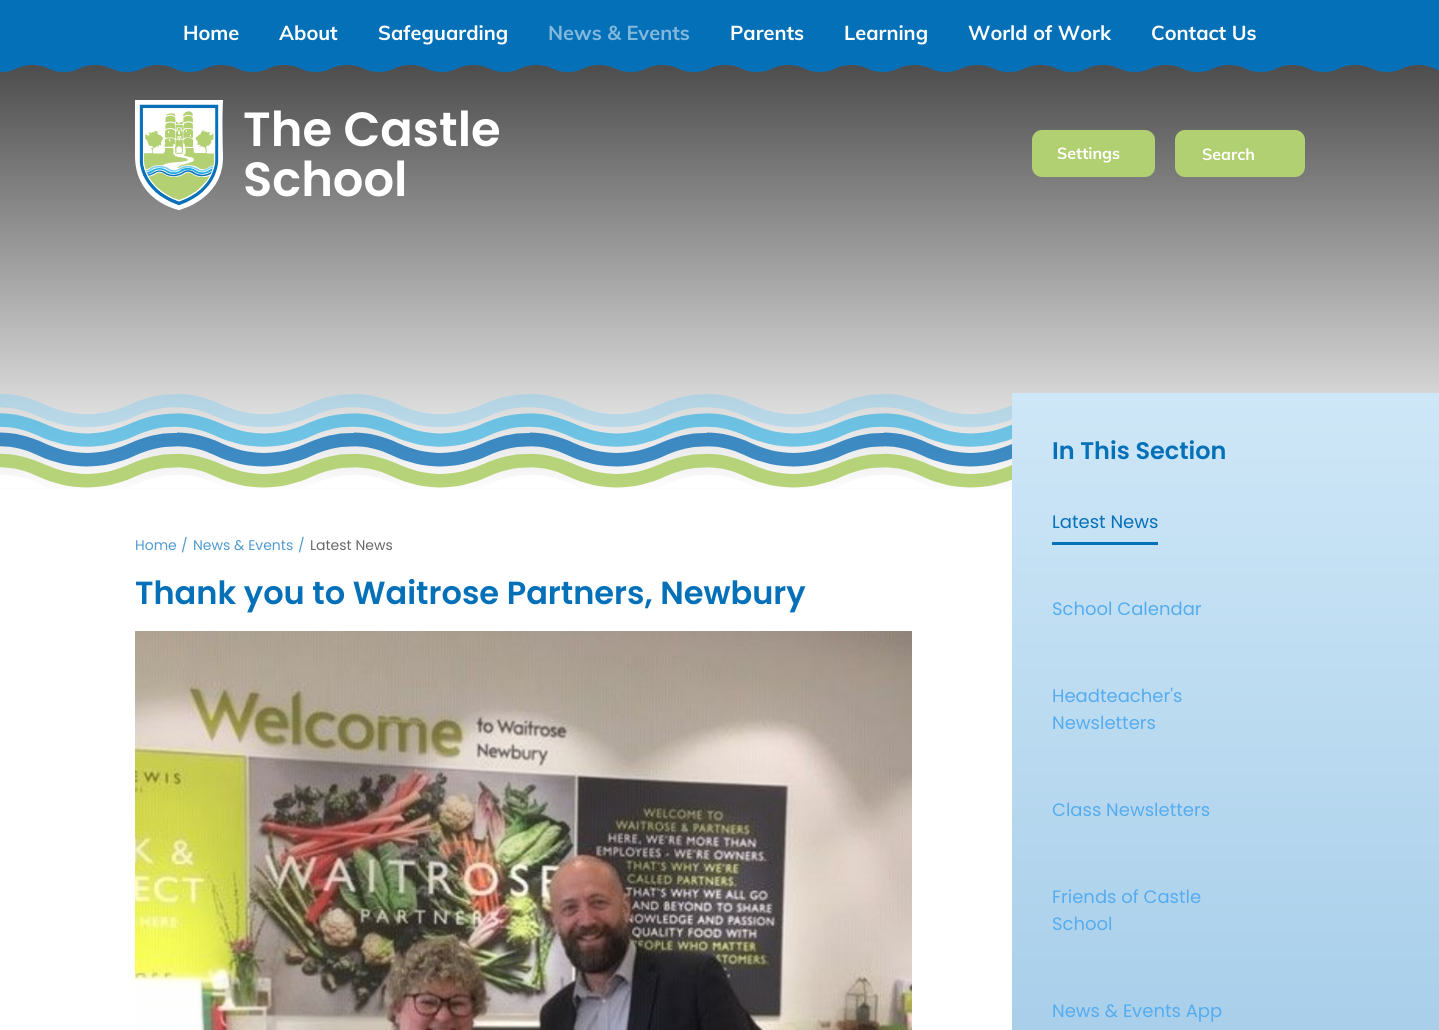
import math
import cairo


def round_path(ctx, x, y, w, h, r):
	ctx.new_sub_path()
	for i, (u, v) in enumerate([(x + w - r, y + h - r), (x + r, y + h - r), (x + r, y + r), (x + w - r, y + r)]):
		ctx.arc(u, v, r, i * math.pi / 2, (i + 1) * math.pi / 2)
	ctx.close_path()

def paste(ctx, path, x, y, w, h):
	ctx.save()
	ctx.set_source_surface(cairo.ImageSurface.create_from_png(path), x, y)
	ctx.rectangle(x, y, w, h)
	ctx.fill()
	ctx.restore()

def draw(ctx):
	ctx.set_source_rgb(1, 1, 1)
	ctx.paint()
	ctx.set_source_rgb(0.016, 0.439, 0.722)
	ctx.rectangle(0, 0, 1439, 65)
	ctx.fill()
	ctx.select_font_face('Muli', cairo.FONT_SLANT_NORMAL, cairo.FONT_WEIGHT_BOLD)
	ctx.set_font_size(20)
	ctx.set_source_rgb(1, 1, 1)
	for x, y, s in [
		(183, 40, 'Home'),
		(279, 40, 'About'),
		(378, 40, 'Safeguarding'),
	]:
		ctx.move_to(x, y)
		ctx.show_text(s)
	ctx.set_source_rgb(0.51, 0.722, 0.863)
	ctx.move_to(548, 40)
	ctx.show_text('News & Events')
	ctx.set_source_rgb(1, 1, 1)
	for x, y, s in [
		(730, 40, 'Parents'),
		(844, 40, 'Learning'),
		(968, 40, 'World of Work'),
		(1151, 40, 'Contact Us'),
	]:
		ctx.move_to(x, y)
		ctx.show_text(s)
	gradient = cairo.LinearGradient(720, 65, 720, 495)
	gradient.add_color_stop_rgba(0, 0.302, 0.302, 0.302, 1)
	gradient.add_color_stop_rgba(1, 1, 1, 1, 1)
	ctx.set_source(gradient)
	ctx.rectangle(0, 65, 1439, 424)
	ctx.fill()
	ctx.set_source_rgb(0.694, 0.816, 0.443)
	round_path(ctx, 1032, 130, 123, 47, 10)
	ctx.fill()
	ctx.set_font_size(16)
	ctx.set_source_rgb(1, 1, 1)
	ctx.move_to(1057, 159)
	ctx.show_text('Settings')
	ctx.set_source_rgb(0.694, 0.816, 0.443)
	round_path(ctx, 1175, 130, 130, 47, 10)
	ctx.fill()
	ctx.set_source_rgb(1, 1, 1)
	ctx.move_to(1202, 160)
	ctx.show_text('Search')
	paste(ctx, 'media/1.png', 0, 65, 1439, 7)
	paste(ctx, 'media/2.png', 135, 100, 88, 110)
	ctx.select_font_face('Poppins SemiBold')
	ctx.set_font_size(48)
	ctx.move_to(243, 146)
	ctx.show_text('The Castle')
	ctx.move_to(243, 196)
	ctx.show_text('School')
	paste(ctx, 'media/3.png', 0, 393, 1012, 95)
	ctx.select_font_face('Poppins')
	ctx.set_font_size(14)
	ctx.set_source_rgb(0.31, 0.608, 0.804)
	for x, y, s in [
		(135, 550, 'Home'),
		(181, 550, '/'),
		(193, 550, 'News & Events'),
		(298, 550, '/'),
	]:
		ctx.move_to(x, y)
		ctx.show_text(s)
	ctx.set_source_rgb(0.412, 0.412, 0.412)
	ctx.move_to(310, 550)
	ctx.show_text('Latest News')
	ctx.select_font_face('Poppins SemiBold')
	ctx.set_font_size(32)
	ctx.set_source_rgb(0.016, 0.439, 0.722)
	ctx.move_to(135, 604)
	ctx.show_text('Thank you to Waitrose Partners, Newbury')
	paste(ctx, 'media/4.png', 135, 631, 777, 399)
	gradient = cairo.LinearGradient(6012, 393, 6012, 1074)
	gradient.add_color_stop_rgba(0, 0.808, 0.906, 0.969, 1)
	gradient.add_color_stop_rgba(1, 0.651, 0.804, 0.914, 1)
	ctx.set_source(gradient)
	ctx.rectangle(1012, 393, 427, 637)
	ctx.fill()
	ctx.set_font_size(24)
	ctx.set_source_rgb(0.016, 0.439, 0.722)
	ctx.move_to(1052, 459)
	ctx.show_text('In This Section')
	ctx.select_font_face('Poppins')
	ctx.set_font_size(18)
	ctx.move_to(1052, 528)
	ctx.show_text('Latest News')
	ctx.rectangle(1052, 542, 106, 3)
	ctx.fill()
	ctx.set_source_rgb(0.333, 0.675, 0.933)
	for x, y, s in [
		(1052, 615, 'School Calendar'),
		(1052, 702, 'Headteacher\'s'),
		(1052, 729, 'Newsletters'),
		(1052, 816, 'Class Newsletters'),
		(1052, 903, 'Friends of Castle'),
		(1052, 930, 'School'),
		(1052, 1017, 'News & Events App'),
	]:
		ctx.move_to(x, y)
		ctx.show_text(s)


surface = cairo.ImageSurface(cairo.FORMAT_RGB24, 1439, 1030)
ctx = cairo.Context(surface)
options = cairo.FontOptions()
options.set_hint_metrics(cairo.HINT_METRICS_OFF)
options.set_hint_style(cairo.HINT_STYLE_NONE)
ctx.set_font_options(options)
ctx.set_miter_limit(4)
draw(ctx)
surface.write_to_png('image.png')
